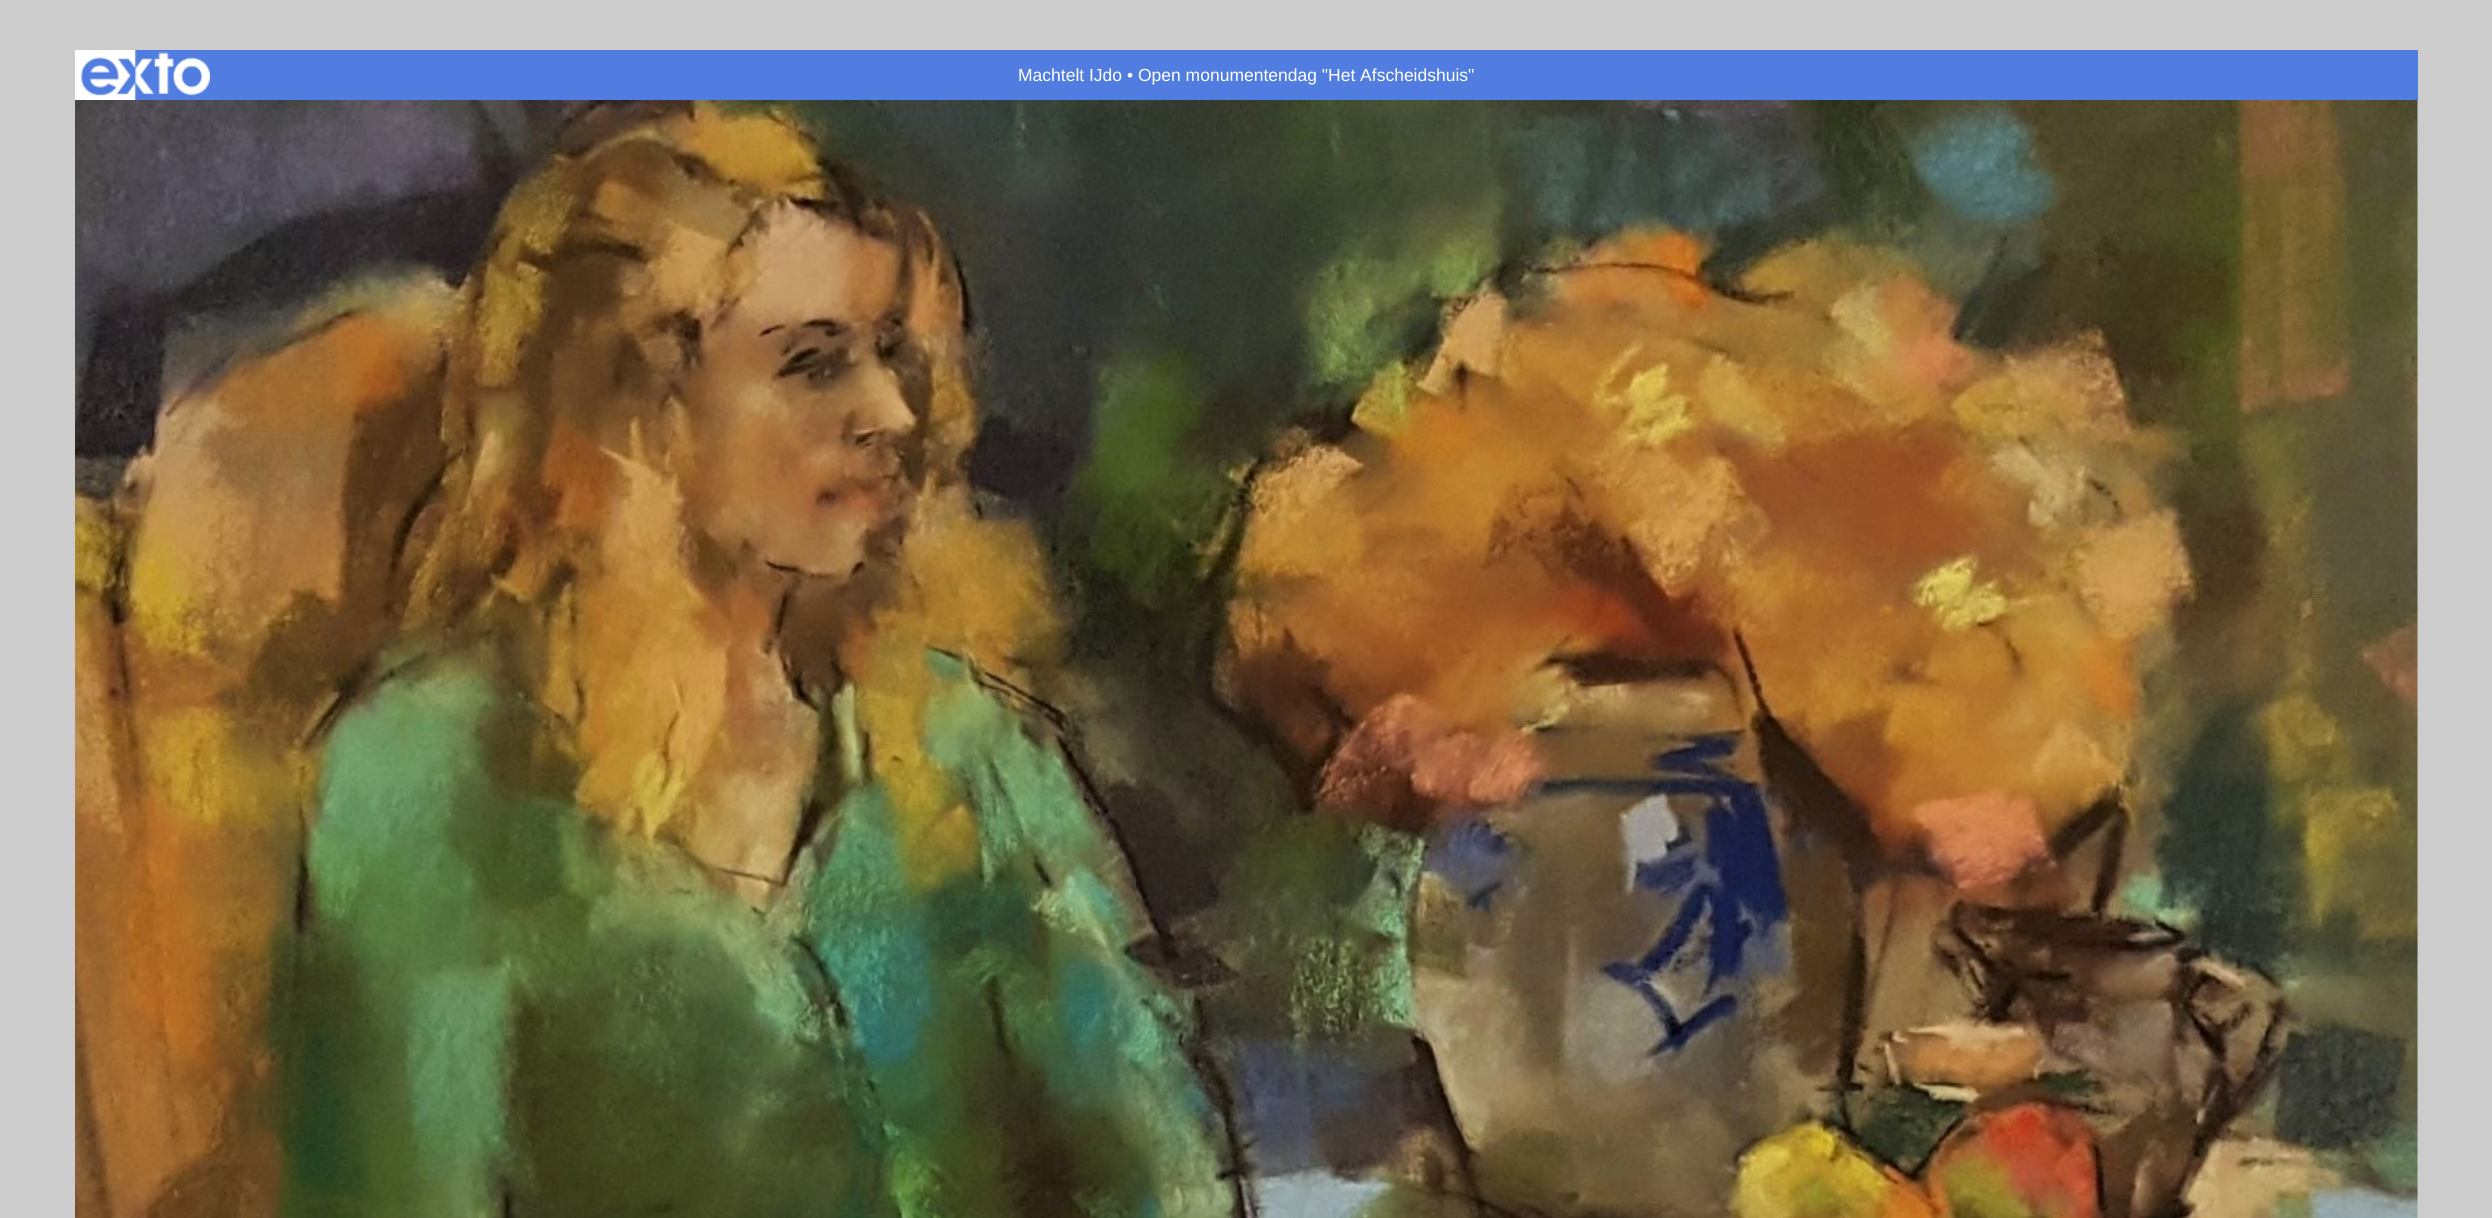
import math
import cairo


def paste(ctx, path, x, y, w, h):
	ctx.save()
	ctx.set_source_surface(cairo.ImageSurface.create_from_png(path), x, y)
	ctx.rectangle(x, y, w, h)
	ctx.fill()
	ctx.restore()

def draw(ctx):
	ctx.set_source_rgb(0.8, 0.8, 0.8)
	ctx.paint()
	ctx.set_source_rgb(0.318, 0.49, 0.882)
	ctx.rectangle(81, 50, 2337, 50)
	ctx.fill()
	paste(ctx, 'media/1.png', 75, 50, 135, 50)
	ctx.select_font_face('Liberation Sans')
	ctx.set_font_size(17.5)
	ctx.set_source_rgb(1, 1, 1)
	ctx.move_to(1018, 81)
	ctx.show_text('Machtelt IJdo • Open monumentendag "Het Afscheidshuis"')
	paste(ctx, 'media/2.png', 75, 100, 2343, 1118)


surface = cairo.ImageSurface(cairo.FORMAT_RGB24, 2492, 1218)
ctx = cairo.Context(surface)
options = cairo.FontOptions()
options.set_hint_metrics(cairo.HINT_METRICS_OFF)
options.set_hint_style(cairo.HINT_STYLE_NONE)
ctx.set_font_options(options)
ctx.set_miter_limit(4)
draw(ctx)
surface.write_to_png('image.png')
